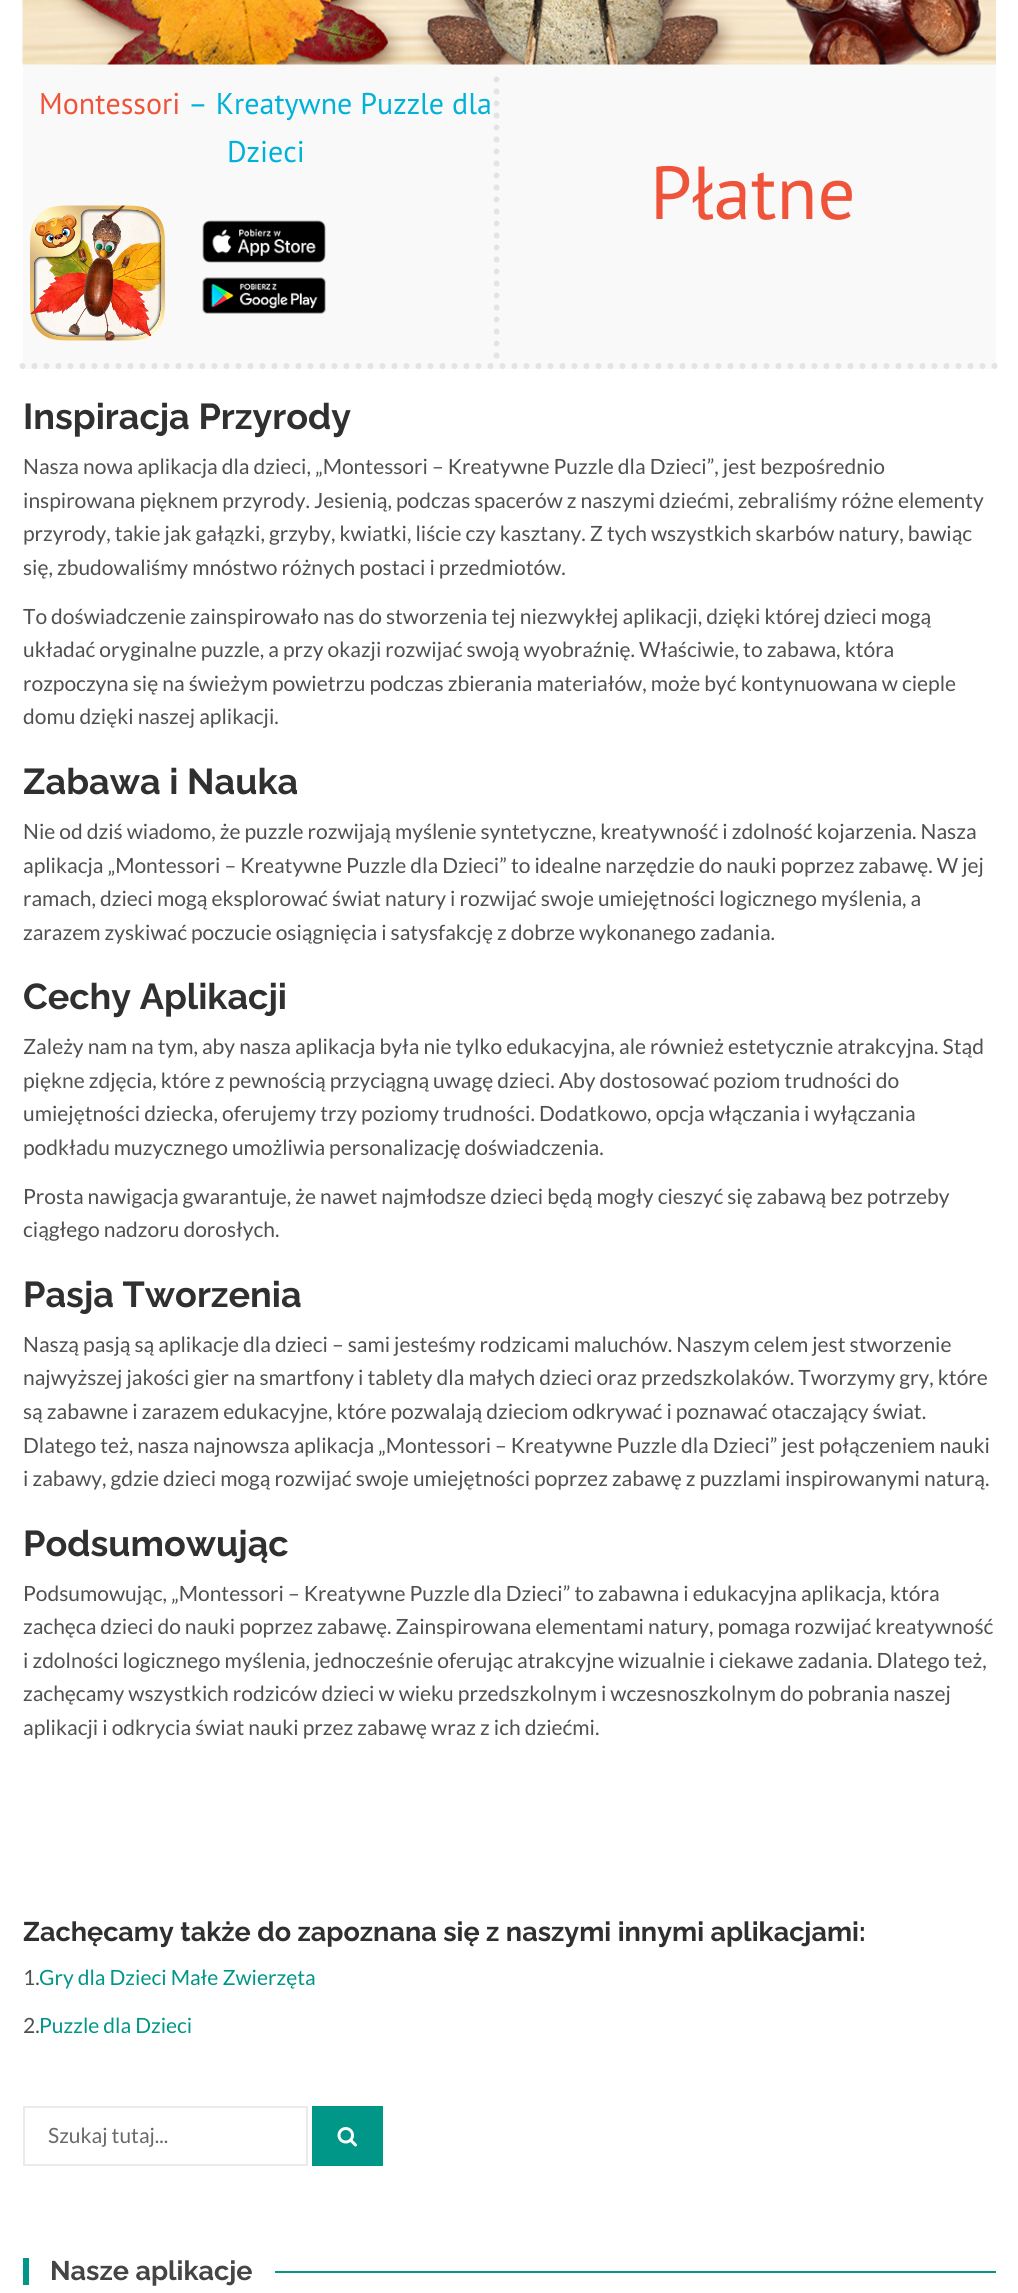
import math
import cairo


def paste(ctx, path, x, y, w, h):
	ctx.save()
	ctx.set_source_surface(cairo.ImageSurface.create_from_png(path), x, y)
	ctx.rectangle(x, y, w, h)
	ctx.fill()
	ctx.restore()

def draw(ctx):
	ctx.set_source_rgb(1, 1, 1)
	ctx.paint()
	ctx.set_source_rgb(0.973, 0.973, 0.973)
	ctx.rectangle(23, 64, 973, 305)
	ctx.fill()
	ctx.new_path()
	ctx.move_to(22.5, 366)
	ctx.line_to(996, 366)
	ctx.set_source_rgb(0.898, 0.894, 0.894)
	ctx.set_line_width(6)
	ctx.set_line_cap(cairo.LINE_CAP_ROUND)
	ctx.set_dash([0, 12])
	ctx.stroke()
	paste(ctx, 'media/1.png', 22, 0, 974, 65)
	ctx.new_path()
	ctx.move_to(496.5, 79.5)
	ctx.line_to(496.5, 363)
	ctx.stroke()
	ctx.select_font_face('PT Sans')
	ctx.set_font_size(30)
	ctx.set_source_rgb(0.937, 0.329, 0.231)
	ctx.move_to(39, 114)
	ctx.show_text('Montessori')
	ctx.set_source_rgb(0, 0.698, 0.851)
	ctx.move_to(188, 114)
	ctx.show_text('– Kreatywne Puzzle dla')
	ctx.move_to(227, 162)
	ctx.show_text('Dzieci')
	paste(ctx, 'media/2.png', 30, 205, 135, 136)
	ctx.set_source_rgb(0.973, 0.973, 0.973)
	ctx.rectangle(493, 210, 1, 134)
	ctx.fill()
	paste(ctx, 'media/3.png', 202, 220, 124, 43)
	paste(ctx, 'media/4.png', 202, 277, 124, 37)
	ctx.set_font_size(75)
	ctx.set_source_rgb(0.937, 0.329, 0.231)
	ctx.move_to(650, 219)
	ctx.show_text('Płatne')
	ctx.select_font_face('Raleway', cairo.FONT_SLANT_NORMAL, cairo.FONT_WEIGHT_BOLD)
	ctx.set_font_size(36)
	ctx.set_source_rgb(0.188, 0.188, 0.188)
	ctx.move_to(23, 429)
	ctx.show_text('Inspiracja Przyrody')
	ctx.select_font_face('Lato')
	ctx.set_font_size(21)
	ctx.set_source_rgb(0.314, 0.314, 0.314)
	for x, y, s in [
		(23, 474, 'Nasza nowa aplikacja dla dzieci, „Montessori – Kreatywne Puzzle dla Dzieci”, jest bezpośrednio'),
		(23, 508, 'inspirowana pięknem przyrody. Jesienią, podczas spacerów z naszymi dziećmi, zebraliśmy różne elementy'),
		(23, 541, 'przyrody, takie jak gałązki, grzyby, kwiatki, liście czy kasztany. Z tych wszystkich skarbów natury, bawiąc'),
		(23, 575, 'się, zbudowaliśmy mnóstwo różnych postaci i przedmiotów.'),
		(23, 624, 'To doświadczenie zainspirowało nas do stworzenia tej niezwykłej aplikacji, dzięki której dzieci mogą'),
		(23, 657, 'układać oryginalne puzzle, a przy okazji rozwijać swoją wyobraźnię. Właściwie, to zabawa, która'),
		(23, 691, 'rozpoczyna się na świeżym powietrzu podczas zbierania materiałów, może być kontynuowana w cieple'),
		(23, 724, 'domu dzięki naszej aplikacji.'),
	]:
		ctx.move_to(x, y)
		ctx.show_text(s)
	ctx.select_font_face('Raleway', cairo.FONT_SLANT_NORMAL, cairo.FONT_WEIGHT_BOLD)
	ctx.set_font_size(36)
	ctx.set_source_rgb(0.188, 0.188, 0.188)
	ctx.move_to(23, 794)
	ctx.show_text('Zabawa i Nauka')
	ctx.select_font_face('Lato')
	ctx.set_font_size(21)
	ctx.set_source_rgb(0.314, 0.314, 0.314)
	for x, y, s in [
		(23, 839, 'Nie od dziś wiadomo, że puzzle rozwijają myślenie syntetyczne, kreatywność i zdolność kojarzenia. Nasza'),
		(23, 873, 'aplikacja „Montessori – Kreatywne Puzzle dla Dzieci” to idealne narzędzie do nauki poprzez zabawę. W jej'),
		(23, 906, 'ramach, dzieci mogą eksplorować świat natury i rozwijać swoje umiejętności logicznego myślenia, a'),
		(23, 940, 'zarazem zyskiwać poczucie osiągnięcia i satysfakcję z dobrze wykonanego zadania.'),
	]:
		ctx.move_to(x, y)
		ctx.show_text(s)
	ctx.select_font_face('Raleway', cairo.FONT_SLANT_NORMAL, cairo.FONT_WEIGHT_BOLD)
	ctx.set_font_size(36)
	ctx.set_source_rgb(0.188, 0.188, 0.188)
	ctx.move_to(23, 1009)
	ctx.show_text('Cechy Aplikacji')
	ctx.select_font_face('Lato')
	ctx.set_font_size(21)
	ctx.set_source_rgb(0.314, 0.314, 0.314)
	for x, y, s in [
		(23, 1054, 'Zależy nam na tym, aby nasza aplikacja była nie tylko edukacyjna, ale również estetycznie atrakcyjna. Stąd'),
		(23, 1088, 'piękne zdjęcia, które z pewnością przyciągną uwagę dzieci. Aby dostosować poziom trudności do'),
		(23, 1121, 'umiejętności dziecka, oferujemy trzy poziomy trudności. Dodatkowo, opcja włączania i wyłączania'),
		(23, 1155, 'podkładu muzycznego umożliwia personalizację doświadczenia.'),
		(23, 1204, 'Prosta nawigacja gwarantuje, że nawet najmłodsze dzieci będą mogły cieszyć się zabawą bez potrzeby'),
		(23, 1237, 'ciągłego nadzoru dorosłych.'),
	]:
		ctx.move_to(x, y)
		ctx.show_text(s)
	ctx.select_font_face('Raleway', cairo.FONT_SLANT_NORMAL, cairo.FONT_WEIGHT_BOLD)
	ctx.set_font_size(36)
	ctx.set_source_rgb(0.188, 0.188, 0.188)
	ctx.move_to(23, 1307)
	ctx.show_text('Pasja Tworzenia')
	ctx.select_font_face('Lato')
	ctx.set_font_size(21)
	ctx.set_source_rgb(0.314, 0.314, 0.314)
	for x, y, s in [
		(23, 1352, 'Naszą pasją są aplikacje dla dzieci – sami jesteśmy rodzicami maluchów. Naszym celem jest stworzenie'),
		(23, 1385, 'najwyższej jakości gier na smartfony i tablety dla małych dzieci oraz przedszkolaków. Tworzymy gry, które'),
		(23, 1419, 'są zabawne i zarazem edukacyjne, które pozwalają dzieciom odkrywać i poznawać otaczający świat.'),
		(23, 1453, 'Dlatego też, nasza najnowsza aplikacja „Montessori – Kreatywne Puzzle dla Dzieci” jest połączeniem nauki'),
		(23, 1486, 'i zabawy, gdzie dzieci mogą rozwijać swoje umiejętności poprzez zabawę z puzzlami inspirowanymi naturą.'),
	]:
		ctx.move_to(x, y)
		ctx.show_text(s)
	ctx.select_font_face('Raleway', cairo.FONT_SLANT_NORMAL, cairo.FONT_WEIGHT_BOLD)
	ctx.set_font_size(36)
	ctx.set_source_rgb(0.188, 0.188, 0.188)
	ctx.move_to(23, 1556)
	ctx.show_text('Podsumowując')
	ctx.select_font_face('Lato')
	ctx.set_font_size(21)
	ctx.set_source_rgb(0.314, 0.314, 0.314)
	for x, y, s in [
		(23, 1601, 'Podsumowując, „Montessori – Kreatywne Puzzle dla Dzieci” to zabawna i edukacyjna aplikacja, która'),
		(23, 1634, 'zachęca dzieci do nauki poprzez zabawę. Zainspirowana elementami natury, pomaga rozwijać kreatywność'),
		(23, 1668, 'i zdolności logicznego myślenia, jednocześnie oferując atrakcyjne wizualnie i ciekawe zadania. Dlatego też,'),
		(23, 1701, 'zachęcamy wszystkich rodziców dzieci w wieku przedszkolnym i wczesnoszkolnym do pobrania naszej'),
		(23, 1735, 'aplikacji i odkrycia świat nauki przez zabawę wraz z ich dziećmi.'),
	]:
		ctx.move_to(x, y)
		ctx.show_text(s)
	ctx.select_font_face('Raleway', cairo.FONT_SLANT_NORMAL, cairo.FONT_WEIGHT_BOLD)
	ctx.set_font_size(27)
	ctx.set_source_rgb(0.188, 0.188, 0.188)
	ctx.move_to(23, 1941)
	ctx.show_text('Zachęcamy także do zapoznana się z naszymi innymi aplikacjami:')
	ctx.select_font_face('Lato')
	ctx.set_font_size(21)
	ctx.set_source_rgb(0.314, 0.314, 0.314)
	ctx.move_to(23, 1985)
	ctx.show_text('1.')
	ctx.set_source_rgb(0, 0.588, 0.533)
	ctx.move_to(39, 1985)
	ctx.show_text('Gry dla Dzieci Małe Zwierzęta')
	ctx.set_source_rgb(0.314, 0.314, 0.314)
	ctx.move_to(23, 2033)
	ctx.show_text('2.')
	ctx.set_source_rgb(0, 0.588, 0.533)
	ctx.move_to(39, 2033)
	ctx.show_text('Puzzle dla Dzieci')
	ctx.rectangle(24, 2107, 283, 58)
	ctx.set_source_rgb(0.918, 0.918, 0.918)
	ctx.set_line_width(2)
	ctx.set_line_cap(cairo.LINE_CAP_BUTT)
	ctx.set_dash([])
	ctx.stroke()
	ctx.set_source_rgb(0.416, 0.416, 0.416)
	ctx.move_to(48, 2143)
	ctx.show_text('Szukaj tutaj...')
	ctx.set_source_rgb(0, 0.588, 0.533)
	ctx.rectangle(312, 2106, 71, 60)
	ctx.fill()
	paste(ctx, 'media/5.png', 337, 2127, 20, 20)
	ctx.rectangle(23, 2258, 6, 27)
	ctx.fill()
	ctx.select_font_face('Raleway', cairo.FONT_SLANT_NORMAL, cairo.FONT_WEIGHT_BOLD)
	ctx.set_font_size(27)
	ctx.set_source_rgb(0.271, 0.271, 0.271)
	ctx.move_to(50, 2280)
	ctx.show_text('Nasze aplikacje')
	ctx.set_source_rgb(0, 0.588, 0.533)
	ctx.rectangle(275, 2271, 721, 2)
	ctx.fill()


surface = cairo.ImageSurface(cairo.FORMAT_RGB24, 1018, 2293)
ctx = cairo.Context(surface)
options = cairo.FontOptions()
options.set_hint_metrics(cairo.HINT_METRICS_OFF)
options.set_hint_style(cairo.HINT_STYLE_NONE)
ctx.set_font_options(options)
ctx.set_miter_limit(4)
draw(ctx)
surface.write_to_png('image.png')
